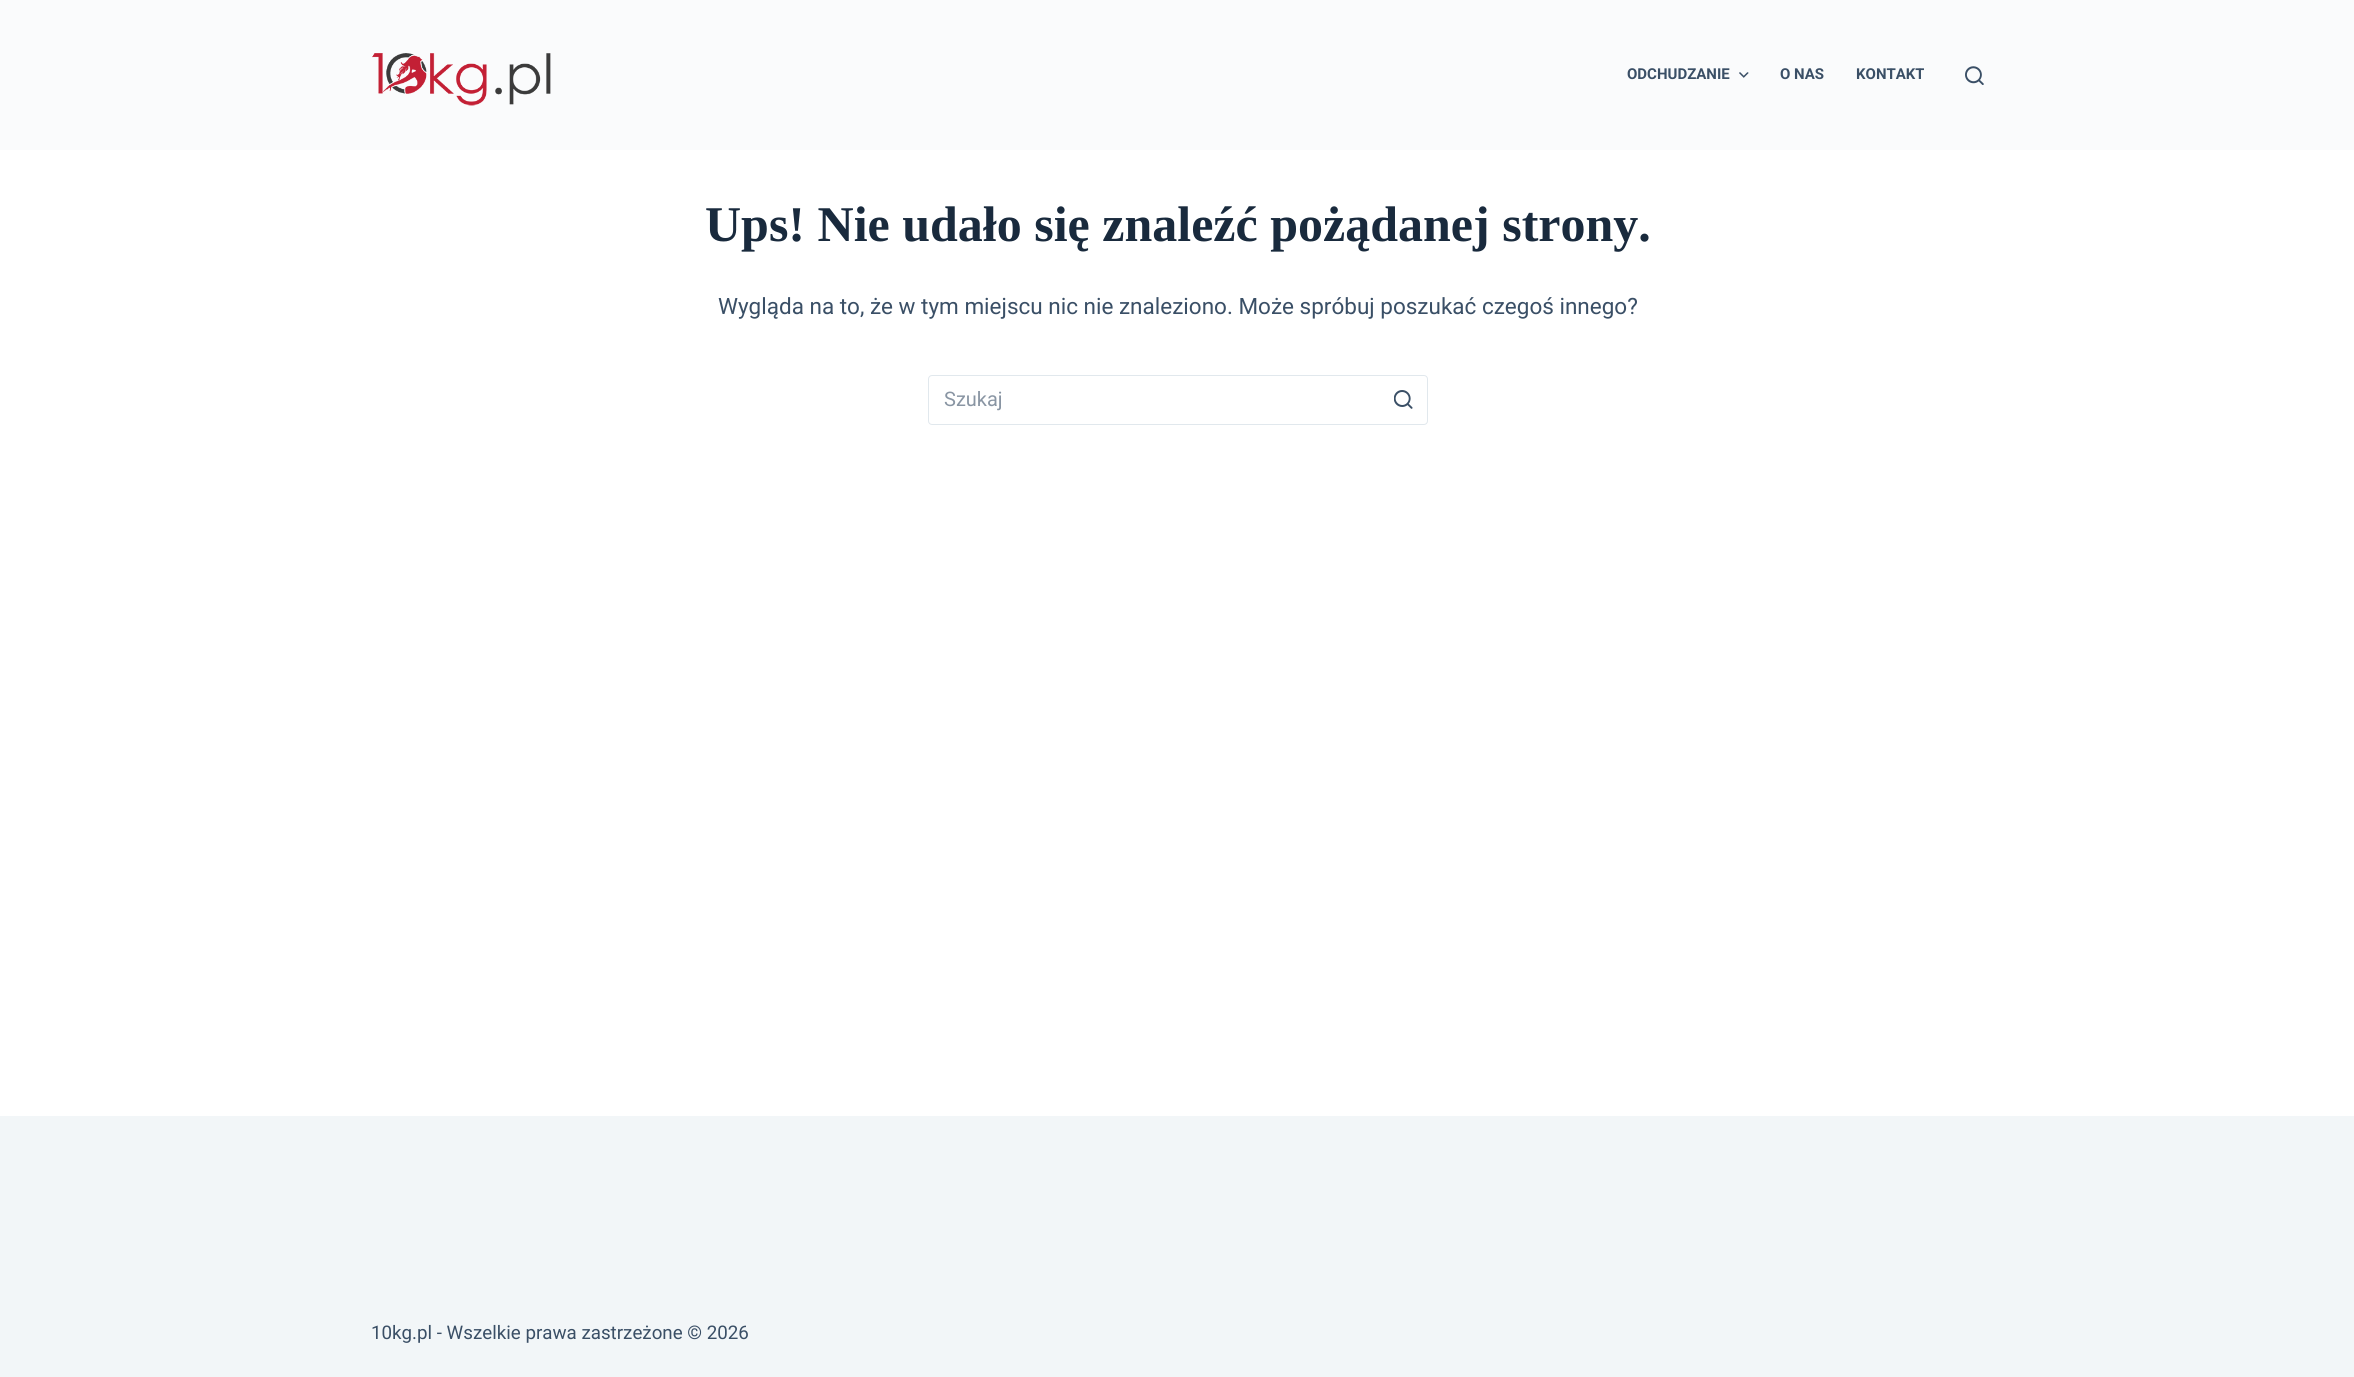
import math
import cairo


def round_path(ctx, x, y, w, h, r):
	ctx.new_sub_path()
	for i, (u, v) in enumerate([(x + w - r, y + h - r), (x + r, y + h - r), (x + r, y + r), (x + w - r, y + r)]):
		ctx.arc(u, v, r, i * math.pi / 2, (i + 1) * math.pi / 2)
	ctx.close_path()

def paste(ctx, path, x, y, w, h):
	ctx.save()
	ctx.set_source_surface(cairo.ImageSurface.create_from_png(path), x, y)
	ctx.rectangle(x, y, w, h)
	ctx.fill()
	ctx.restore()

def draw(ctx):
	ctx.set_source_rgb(1, 1, 1)
	ctx.paint()
	ctx.set_source_rgb(0.98, 0.984, 0.988)
	ctx.rectangle(0, 0, 2354, 150)
	ctx.fill()
	paste(ctx, 'media/1.png', 372, 53, 179, 53)
	ctx.select_font_face('Roboto', cairo.FONT_SLANT_NORMAL, cairo.FONT_WEIGHT_BOLD)
	ctx.set_font_size(15)
	ctx.set_source_rgb(0.227, 0.31, 0.4)
	ctx.move_to(1627, 79)
	ctx.show_text('ODCHUDZANIE')
	paste(ctx, 'media/2.png', 1739, 72, 10, 6)
	ctx.move_to(1780, 79)
	ctx.show_text('O NAS')
	ctx.move_to(1856, 79)
	ctx.show_text('KONTAKT')
	paste(ctx, 'media/3.png', 1965, 66, 19, 19)
	ctx.select_font_face('Liberation Serif', cairo.FONT_SLANT_NORMAL, cairo.FONT_WEIGHT_BOLD)
	ctx.set_font_size(50)
	ctx.set_source_rgb(0.098, 0.165, 0.239)
	ctx.move_to(705, 241)
	ctx.show_text('Ups! Nie udało się znaleźć pożądanej strony.')
	ctx.select_font_face('Roboto')
	ctx.set_font_size(22.5)
	ctx.set_source_rgb(0.227, 0.31, 0.4)
	ctx.move_to(718, 314)
	ctx.show_text('Wygląda na to, że w tym miejscu nic nie znaleziono. Może spróbuj poszukać czegoś innego?')
	round_path(ctx, 928.5, 375.5, 499, 49, 3.5)
	ctx.set_source_rgb(0.882, 0.91, 0.929)
	ctx.set_line_width(1)
	ctx.stroke()
	ctx.set_font_size(20)
	ctx.set_source_rgb(0.537, 0.584, 0.639)
	ctx.move_to(944, 406)
	ctx.show_text('Szukaj')
	paste(ctx, 'media/4.png', 1394, 390, 19, 19)
	ctx.set_source_rgb(0.949, 0.961, 0.969)
	ctx.rectangle(0, 1116, 2354, 261)
	ctx.fill()
	ctx.set_font_size(18.75)
	ctx.set_source_rgb(0.227, 0.31, 0.4)
	ctx.move_to(371, 1339)
	ctx.show_text('10kg.pl - Wszelkie prawa zastrzeżone © 2026')


surface = cairo.ImageSurface(cairo.FORMAT_RGB24, 2354, 1377)
ctx = cairo.Context(surface)
options = cairo.FontOptions()
options.set_hint_metrics(cairo.HINT_METRICS_OFF)
options.set_hint_style(cairo.HINT_STYLE_NONE)
ctx.set_font_options(options)
ctx.set_miter_limit(4)
draw(ctx)
surface.write_to_png('image.png')
